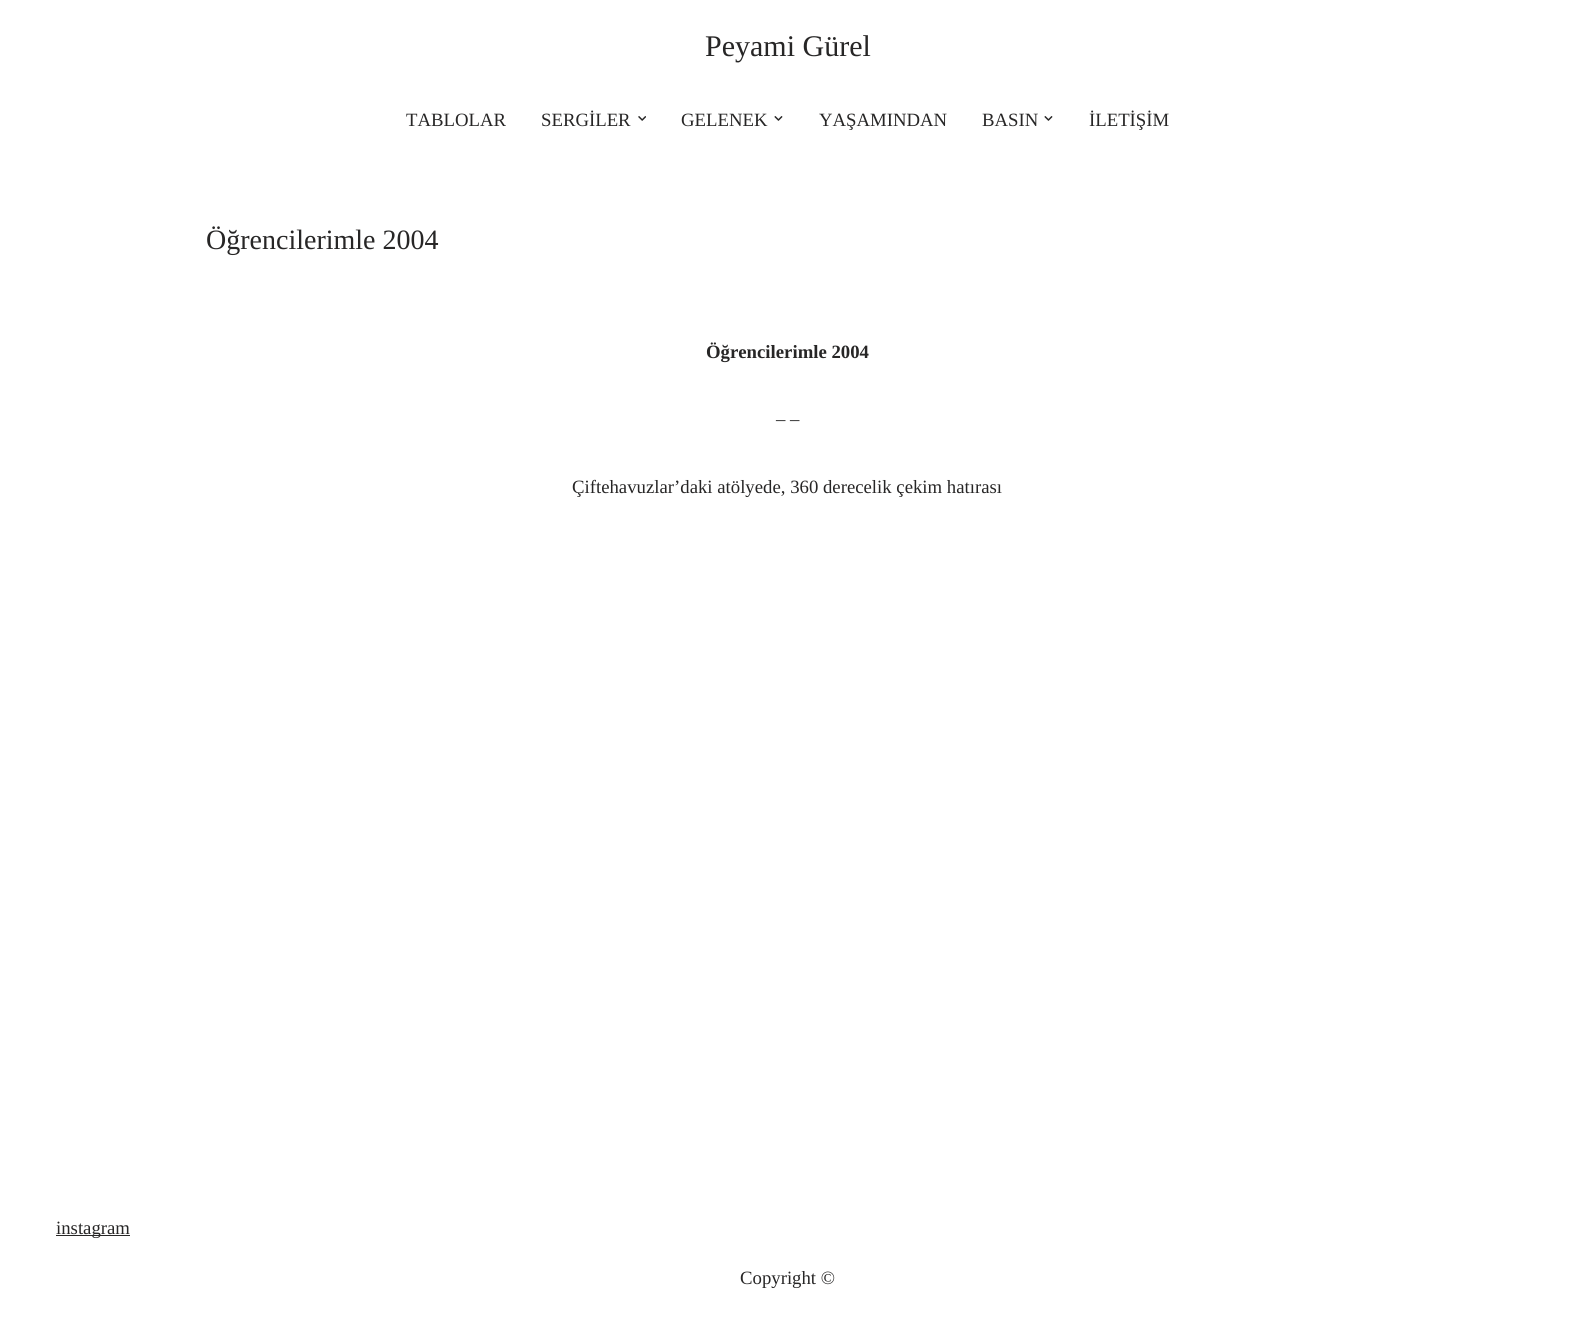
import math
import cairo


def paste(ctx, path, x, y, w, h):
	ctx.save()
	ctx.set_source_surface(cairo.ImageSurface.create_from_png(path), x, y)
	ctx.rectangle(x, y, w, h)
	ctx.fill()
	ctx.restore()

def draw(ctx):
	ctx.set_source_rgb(1, 1, 1)
	ctx.paint()
	ctx.select_font_face('Liberation Serif')
	ctx.set_font_size(30)
	ctx.set_source_rgb(0.153, 0.149, 0.149)
	ctx.move_to(705, 56)
	ctx.show_text('Peyami Gürel')
	ctx.set_font_size(18.75)
	ctx.move_to(406, 126)
	ctx.show_text('TABLOLAR')
	ctx.move_to(541, 126)
	ctx.show_text('SERGİLER')
	paste(ctx, 'media/1.png', 638, 116, 8, 5)
	ctx.move_to(681, 126)
	ctx.show_text('GELENEK')
	paste(ctx, 'media/2.png', 774, 116, 9, 5)
	ctx.move_to(819, 126)
	ctx.show_text('YAŞAMINDAN')
	ctx.move_to(982, 126)
	ctx.show_text('BASIN')
	paste(ctx, 'media/2.png', 1044, 116, 9, 5)
	ctx.move_to(1089, 126)
	ctx.show_text('İLETİŞİM')
	ctx.set_font_size(28)
	ctx.move_to(206, 249)
	ctx.show_text('Öğrencilerimle 2004')
	ctx.select_font_face('Liberation Serif', cairo.FONT_SLANT_NORMAL, cairo.FONT_WEIGHT_BOLD)
	ctx.set_font_size(18.75)
	ctx.move_to(706, 358)
	ctx.show_text('Öğrencilerimle 2004')
	ctx.select_font_face('Liberation Serif')
	ctx.move_to(776, 425)
	ctx.show_text('– –')
	ctx.move_to(572, 493)
	ctx.show_text('Çiftehavuzlar’daki atölyede, 360 derecelik çekim hatırası')
	ctx.rectangle(56, 1235, 74, 1)
	ctx.fill()
	ctx.move_to(56, 1234)
	ctx.show_text('instagram')
	ctx.move_to(740, 1284)
	ctx.show_text('Copyright ©')


surface = cairo.ImageSurface(cairo.FORMAT_RGB24, 1575, 1323)
ctx = cairo.Context(surface)
options = cairo.FontOptions()
options.set_hint_metrics(cairo.HINT_METRICS_OFF)
options.set_hint_style(cairo.HINT_STYLE_NONE)
ctx.set_font_options(options)
ctx.set_miter_limit(4)
draw(ctx)
surface.write_to_png('image.png')
